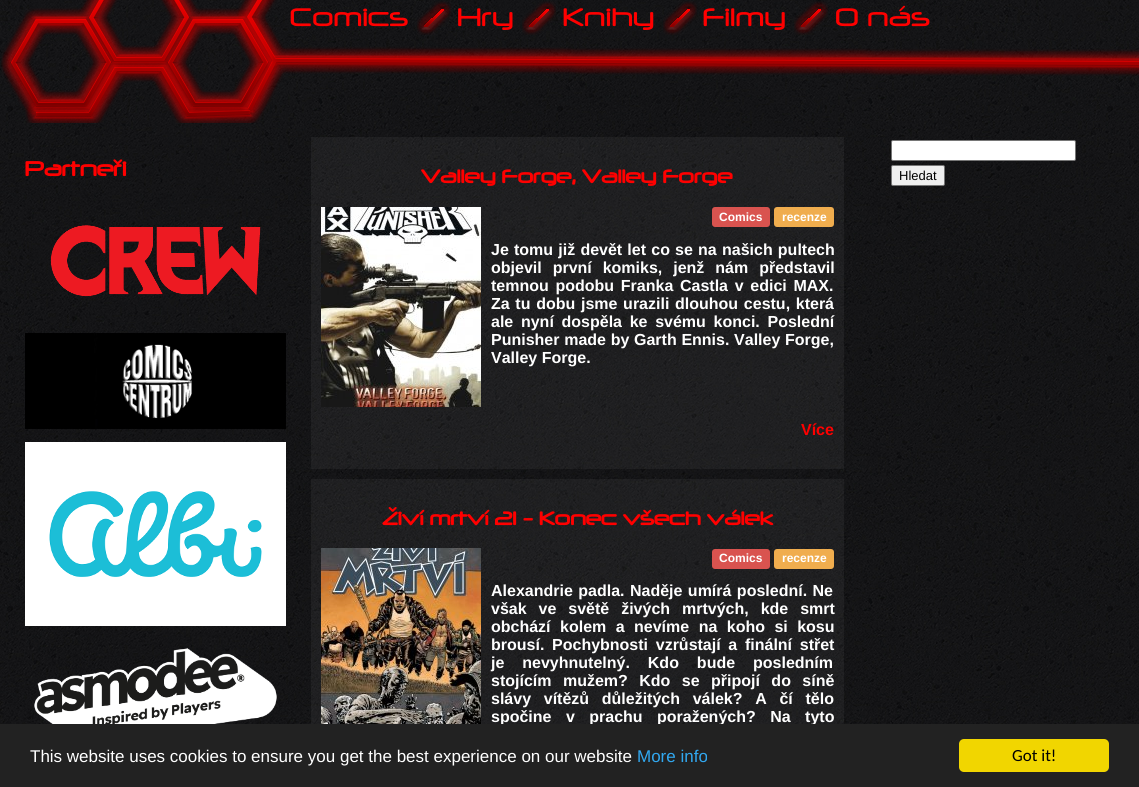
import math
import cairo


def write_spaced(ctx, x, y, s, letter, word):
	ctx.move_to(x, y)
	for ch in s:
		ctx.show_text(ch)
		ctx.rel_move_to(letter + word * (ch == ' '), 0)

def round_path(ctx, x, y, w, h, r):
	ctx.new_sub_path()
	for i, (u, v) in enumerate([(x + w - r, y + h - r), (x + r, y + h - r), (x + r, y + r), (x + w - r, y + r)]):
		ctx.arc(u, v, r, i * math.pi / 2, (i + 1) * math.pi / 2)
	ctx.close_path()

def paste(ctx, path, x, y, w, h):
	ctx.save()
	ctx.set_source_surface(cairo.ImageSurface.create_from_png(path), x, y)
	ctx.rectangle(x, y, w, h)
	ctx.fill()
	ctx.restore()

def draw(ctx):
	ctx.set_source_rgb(1, 1, 1)
	ctx.paint()
	paste(ctx, 'media/1.png', 0, 0, 1139, 724)
	paste(ctx, 'media/2.png', 1, 0, 1138, 123)
	ctx.select_font_face('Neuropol')
	ctx.set_font_size(30)
	ctx.set_source_rgb(1, 0, 0)
	ctx.move_to(290, 26)
	ctx.show_text('Comics')
	paste(ctx, 'media/3.png', 417, 1, 34, 34)
	ctx.move_to(457, 26)
	ctx.show_text('Hry')
	paste(ctx, 'media/4.png', 522, 1, 34, 34)
	ctx.move_to(563, 26)
	ctx.show_text('Knihy')
	paste(ctx, 'media/5.png', 663, 1, 34, 34)
	ctx.move_to(703, 26)
	ctx.show_text('Filmy')
	paste(ctx, 'media/6.png', 794, 1, 34, 34)
	ctx.move_to(835, 26)
	ctx.show_text('O nás')
	ctx.select_font_face('Neuropol', cairo.FONT_SLANT_NORMAL, cairo.FONT_WEIGHT_BOLD)
	ctx.set_font_size(24)
	ctx.move_to(25, 176)
	ctx.show_text('Partneři')
	paste(ctx, 'media/7.png', 50, 225, 211, 72)
	paste(ctx, 'media/8.png', 25, 333, 261, 96)
	paste(ctx, 'media/9.png', 25, 442, 261, 184)
	paste(ctx, 'media/10.png', 34, 648, 243, 76)
	ctx.set_source_rgba(1, 1, 1, 0.05)
	ctx.rectangle(311, 137, 533, 332)
	ctx.fill()
	ctx.set_font_size(22)
	ctx.set_source_rgb(1, 0, 0)
	ctx.move_to(421, 183)
	ctx.show_text('Valley Forge, Valley Forge')
	paste(ctx, 'media/11.png', 321, 207, 160, 200)
	ctx.set_source_rgb(0.851, 0.325, 0.31)
	round_path(ctx, 712, 207, 58, 20, 3)
	ctx.fill()
	ctx.select_font_face('Liberation Sans', cairo.FONT_SLANT_NORMAL, cairo.FONT_WEIGHT_BOLD)
	ctx.set_font_size(12)
	ctx.set_source_rgb(1, 1, 1)
	ctx.move_to(719, 221)
	ctx.show_text('Comics')
	ctx.set_source_rgb(0.941, 0.678, 0.306)
	round_path(ctx, 774, 207, 60, 20, 3)
	ctx.fill()
	ctx.set_source_rgb(1, 1, 1)
	ctx.move_to(782, 221)
	ctx.show_text('recenze')
	ctx.set_font_size(16)
	write_spaced(ctx, 491, 255, 'Je tomu již devět let co se na našich pultech', 0, 0.75)
	write_spaced(ctx, 491, 273, 'objevil první komiks, jenž nám představil', 0, 6.5)
	write_spaced(ctx, 491, 291, 'temnou podobu Franka Castla v edici MAX.', 0, 2.25)
	write_spaced(ctx, 491, 309, 'Za tu dobu jsme urazili dlouhou cestu, která', 0, 1.25)
	write_spaced(ctx, 491, 327, 'ale nyní dospěla ke svému konci. Poslední', 0, 3.25)
	write_spaced(ctx, 491, 345, 'Punisher made by Garth Ennis. Valley Forge,', 0, 0.25)
	ctx.move_to(491, 363)
	ctx.show_text('Valley Forge.')
	ctx.set_source_rgb(1, 0, 0)
	ctx.move_to(801, 435)
	ctx.show_text('Více')
	ctx.set_source_rgba(1, 1, 1, 0.05)
	ctx.rectangle(311, 479, 533, 245)
	ctx.fill()
	ctx.select_font_face('Neuropol', cairo.FONT_SLANT_NORMAL, cairo.FONT_WEIGHT_BOLD)
	ctx.set_font_size(22)
	ctx.set_source_rgb(1, 0, 0)
	ctx.move_to(382, 525)
	ctx.show_text('Živí mrtví 21 - Konec všech válek')
	paste(ctx, 'media/12.png', 321, 548, 160, 176)
	ctx.set_source_rgb(0.851, 0.325, 0.31)
	round_path(ctx, 712, 549, 58, 20, 3)
	ctx.fill()
	ctx.select_font_face('Liberation Sans', cairo.FONT_SLANT_NORMAL, cairo.FONT_WEIGHT_BOLD)
	ctx.set_font_size(12)
	ctx.set_source_rgb(1, 1, 1)
	ctx.move_to(719, 562)
	ctx.show_text('Comics')
	ctx.set_source_rgb(0.941, 0.678, 0.306)
	round_path(ctx, 774, 549, 60, 20, 3)
	ctx.fill()
	ctx.set_source_rgb(1, 1, 1)
	ctx.move_to(782, 562)
	ctx.show_text('recenze')
	ctx.set_font_size(16)
	write_spaced(ctx, 491, 596, 'Alexandrie padla. Naděje umírá poslední. Ne', 0, 1)
	write_spaced(ctx, 491, 614, 'však ve světě živých mrtvých, kde smrt', 0, 7.5)
	write_spaced(ctx, 491, 632, 'obchází kolem a nevíme na koho si kosu', 0, 5)
	write_spaced(ctx, 491, 650, 'brousí. Pochybnosti vzrůstají a finální střet', 0, 3.25)
	write_spaced(ctx, 491, 668, 'je nevyhnutelný. Kdo bude posledním', 0, 13.5)
	write_spaced(ctx, 491, 686, 'stojícím mužem? Kdo se připojí do síně', 0, 7)
	write_spaced(ctx, 491, 704, 'slávy vítězů důležitých válek? A čí tělo', 0, 8.25)
	write_spaced(ctx, 491, 722, 'spočine v prachu poražených? Na tyto', 0, 10)
	round_path(ctx, 891.5, 140.5, 184, 20, 1.5)
	ctx.fill_preserve()
	ctx.set_source_rgb(0.463, 0.463, 0.463)
	ctx.set_line_width(1)
	ctx.stroke()
	ctx.set_source_rgb(0.937, 0.937, 0.937)
	round_path(ctx, 891.5, 165.5, 53, 20, 1.5)
	ctx.fill_preserve()
	ctx.set_source_rgb(0.463, 0.463, 0.463)
	ctx.stroke()
	ctx.select_font_face('Liberation Sans')
	ctx.set_font_size(13)
	ctx.set_source_rgb(0, 0, 0)
	ctx.move_to(899, 180)
	ctx.show_text('Hledat')
	ctx.set_source_rgb(0.133, 0.133, 0.133)
	ctx.rectangle(0, 724, 1139, 63)
	ctx.fill()
	ctx.set_font_size(17)
	ctx.set_source_rgb(1, 1, 1)
	ctx.move_to(30, 762)
	ctx.show_text('This website uses cookies to ensure you get the best experience on our website')
	ctx.set_source_rgb(0.192, 0.659, 0.941)
	ctx.move_to(637, 762)
	ctx.show_text('More info')
	ctx.set_source_rgb(0.945, 0.839, 0)
	round_path(ctx, 959, 739, 150, 33, 5)
	ctx.fill()
	ctx.select_font_face('Carlito')
	ctx.set_source_rgb(0, 0, 0)
	ctx.move_to(1012, 761)
	ctx.show_text('Got it!')


surface = cairo.ImageSurface(cairo.FORMAT_RGB24, 1139, 787)
ctx = cairo.Context(surface)
options = cairo.FontOptions()
options.set_hint_metrics(cairo.HINT_METRICS_OFF)
options.set_hint_style(cairo.HINT_STYLE_NONE)
ctx.set_font_options(options)
ctx.set_miter_limit(4)
draw(ctx)
surface.write_to_png('image.png')
